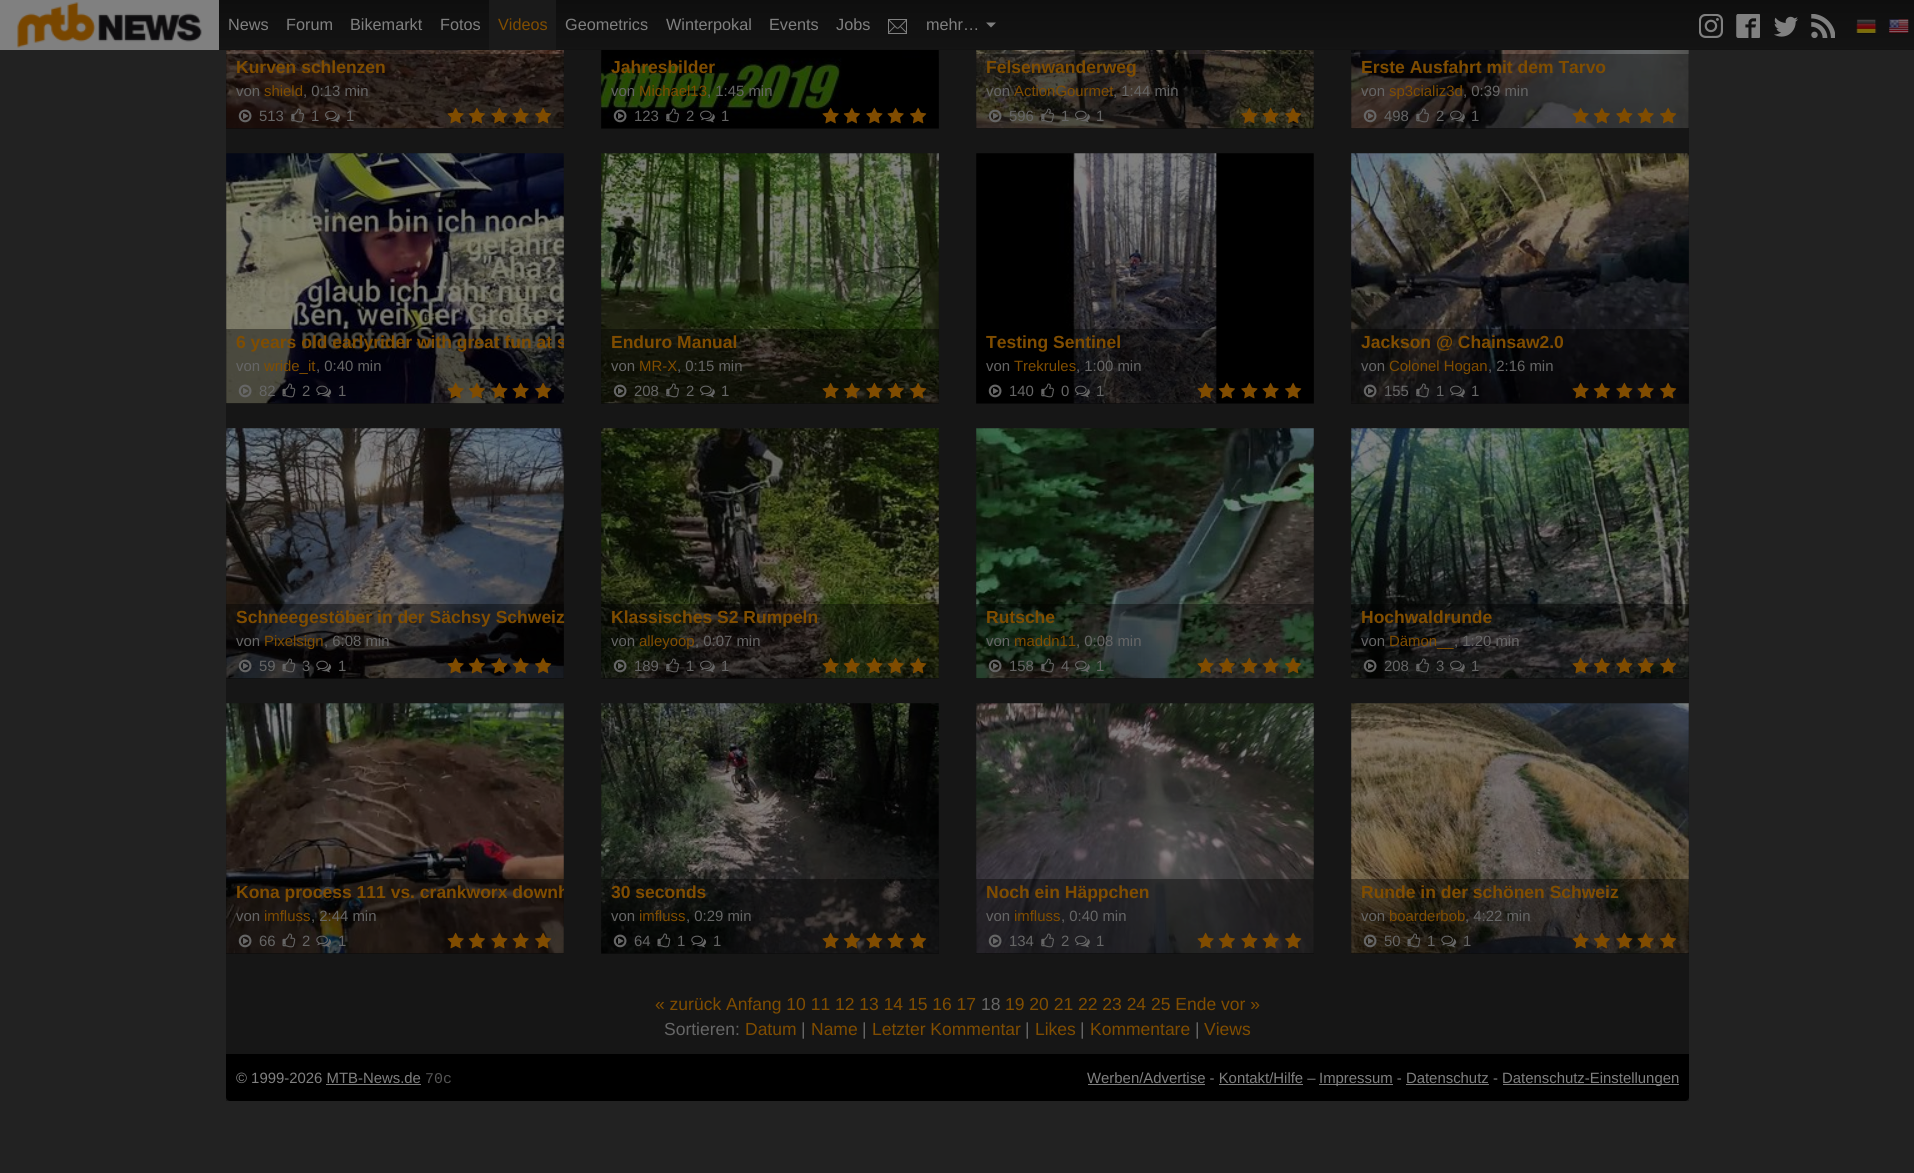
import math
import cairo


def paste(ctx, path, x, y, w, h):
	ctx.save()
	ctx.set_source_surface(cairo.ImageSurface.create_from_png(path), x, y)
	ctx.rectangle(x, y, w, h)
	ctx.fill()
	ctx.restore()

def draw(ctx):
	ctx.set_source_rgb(0.133, 0.133, 0.133)
	ctx.paint()
	gradient = cairo.LinearGradient(958, 0, 958, 50)
	gradient.add_color_stop_rgba(0, 0.055, 0.055, 0.055, 1)
	gradient.add_color_stop_rgba(1, 0.078, 0.078, 0.078, 1)
	ctx.set_source(gradient)
	ctx.rectangle(219, 0, 1695, 49)
	ctx.fill()
	ctx.set_source_rgb(0.071, 0.071, 0.071)
	ctx.rectangle(219, 49, 1695, 1)
	ctx.fill()
	ctx.set_source_rgb(0.502, 0.502, 0.502)
	ctx.rectangle(0, 0, 219, 50)
	ctx.fill()
	paste(ctx, 'media/1.png', 17, 2, 185, 46)
	ctx.select_font_face('Liberation Sans')
	ctx.set_font_size(16.25)
	for x, y, s in [
		(228, 30, 'News'),
		(286, 30, 'Forum'),
		(350, 30, 'Bikemarkt'),
		(440, 30, 'Fotos'),
	]:
		ctx.move_to(x, y)
		ctx.show_text(s)
	ctx.set_source_rgb(0.102, 0.102, 0.102)
	ctx.rectangle(489, 0, 67, 50)
	ctx.fill()
	ctx.set_source_rgb(0.502, 0.302, 0)
	ctx.move_to(498, 30)
	ctx.show_text('Videos')
	ctx.set_source_rgb(0.502, 0.502, 0.502)
	for x, y, s in [
		(565, 30, 'Geometrics'),
		(666, 30, 'Winterpokal'),
		(769, 30, 'Events'),
		(836, 30, 'Jobs'),
	]:
		ctx.move_to(x, y)
		ctx.show_text(s)
	paste(ctx, 'media/2.png', 888, 19, 20, 15)
	ctx.move_to(926, 30)
	ctx.show_text('mehr…')
	ctx.new_path()
	ctx.move_to(986, 22.5)
	ctx.line_to(996, 22.5)
	ctx.line_to(991, 27.5)
	ctx.close_path()
	ctx.fill()
	paste(ctx, 'media/3.png', 1699, 14, 24, 24)
	paste(ctx, 'media/4.png', 1736, 14, 24, 24)
	paste(ctx, 'media/5.png', 1774, 16, 24, 21)
	paste(ctx, 'media/6.png', 1811, 14, 24, 24)
	paste(ctx, 'media/7.png', 1856, 19, 21, 15)
	paste(ctx, 'media/8.png', 1889, 19, 20, 15)
	ctx.set_source_rgb(0.086, 0.086, 0.086)
	ctx.rectangle(226, 50, 1463, 1051)
	ctx.fill()
	paste(ctx, 'media/9.png', 226, 50, 338, 79)
	ctx.set_source_rgba(0, 0, 0, 0.4)
	ctx.rectangle(226, 54, 338, 75)
	ctx.fill()
	ctx.select_font_face('Liberation Sans', cairo.FONT_SLANT_NORMAL, cairo.FONT_WEIGHT_BOLD)
	ctx.set_font_size(17.5)
	ctx.set_source_rgb(0.502, 0.302, 0)
	ctx.move_to(236, 73)
	ctx.show_text('Kurven schlenzen')
	ctx.select_font_face('Liberation Sans')
	ctx.set_font_size(14.9)
	ctx.set_source_rgb(0.4, 0.4, 0.4)
	ctx.move_to(236, 96)
	ctx.show_text('von')
	ctx.set_source_rgb(0.502, 0.302, 0)
	ctx.move_to(264, 96)
	ctx.show_text('shield')
	ctx.set_source_rgb(0.4, 0.4, 0.4)
	ctx.move_to(303, 96)
	ctx.show_text(', 0:13 min')
	paste(ctx, 'media/10.png', 238, 109, 14, 14)
	ctx.move_to(259, 121)
	ctx.show_text('513')
	paste(ctx, 'media/11.png', 291, 108, 13, 15)
	ctx.move_to(311, 121)
	ctx.show_text('1')
	paste(ctx, 'media/12.png', 325, 110, 15, 13)
	ctx.move_to(346, 121)
	ctx.show_text('1')
	paste(ctx, 'media/13.png', 447, 107, 17, 17)
	paste(ctx, 'media/14.png', 468, 107, 17, 17)
	paste(ctx, 'media/15.png', 491, 107, 17, 17)
	paste(ctx, 'media/16.png', 512, 107, 17, 17)
	paste(ctx, 'media/17.png', 535, 107, 17, 17)
	paste(ctx, 'media/18.png', 601, 50, 338, 79)
	ctx.set_source_rgba(0, 0, 0, 0.4)
	ctx.rectangle(601, 58, 338, 71)
	ctx.fill()
	ctx.select_font_face('Liberation Sans', cairo.FONT_SLANT_NORMAL, cairo.FONT_WEIGHT_BOLD)
	ctx.set_font_size(17.5)
	ctx.set_source_rgb(0.502, 0.302, 0)
	ctx.move_to(611, 73)
	ctx.show_text('Jahresbilder')
	ctx.select_font_face('Liberation Sans')
	ctx.set_font_size(14.9)
	ctx.set_source_rgb(0.4, 0.4, 0.4)
	ctx.move_to(611, 96)
	ctx.show_text('von')
	ctx.set_source_rgb(0.502, 0.302, 0)
	ctx.move_to(639, 96)
	ctx.show_text('Michael13')
	ctx.set_source_rgb(0.4, 0.4, 0.4)
	ctx.move_to(707, 96)
	ctx.show_text(', 1:45 min')
	paste(ctx, 'media/19.png', 613, 109, 14, 14)
	ctx.move_to(634, 121)
	ctx.show_text('123')
	paste(ctx, 'media/20.png', 666, 108, 13, 15)
	ctx.move_to(686, 121)
	ctx.show_text('2')
	paste(ctx, 'media/21.png', 700, 110, 15, 13)
	ctx.move_to(721, 121)
	ctx.show_text('1')
	paste(ctx, 'media/22.png', 822, 107, 17, 17)
	paste(ctx, 'media/23.png', 843, 107, 17, 17)
	paste(ctx, 'media/24.png', 866, 107, 17, 17)
	paste(ctx, 'media/25.png', 887, 107, 17, 17)
	paste(ctx, 'media/26.png', 910, 107, 17, 17)
	paste(ctx, 'media/27.png', 976, 50, 338, 79)
	ctx.set_source_rgba(0, 0, 0, 0.4)
	ctx.rectangle(976, 54, 338, 75)
	ctx.fill()
	ctx.select_font_face('Liberation Sans', cairo.FONT_SLANT_NORMAL, cairo.FONT_WEIGHT_BOLD)
	ctx.set_font_size(17.5)
	ctx.set_source_rgb(0.502, 0.302, 0)
	ctx.move_to(986, 73)
	ctx.show_text('Felsenwanderweg')
	ctx.select_font_face('Liberation Sans')
	ctx.set_font_size(14.9)
	ctx.set_source_rgb(0.4, 0.4, 0.4)
	ctx.move_to(986, 96)
	ctx.show_text('von')
	ctx.set_source_rgb(0.502, 0.302, 0)
	ctx.move_to(1014, 96)
	ctx.show_text('ActionGourmet')
	ctx.set_source_rgb(0.4, 0.4, 0.4)
	ctx.move_to(1113, 96)
	ctx.show_text(', 1:44 min')
	paste(ctx, 'media/28.png', 988, 109, 14, 14)
	ctx.move_to(1009, 121)
	ctx.show_text('596')
	paste(ctx, 'media/29.png', 1041, 108, 13, 15)
	ctx.move_to(1061, 121)
	ctx.show_text('1')
	paste(ctx, 'media/30.png', 1075, 110, 15, 13)
	ctx.move_to(1096, 121)
	ctx.show_text('1')
	paste(ctx, 'media/31.png', 1241, 107, 17, 17)
	paste(ctx, 'media/32.png', 1262, 107, 17, 17)
	paste(ctx, 'media/33.png', 1285, 107, 17, 17)
	paste(ctx, 'media/34.png', 1351, 50, 338, 79)
	ctx.set_source_rgba(0, 0, 0, 0.4)
	ctx.rectangle(1351, 54, 338, 75)
	ctx.fill()
	ctx.select_font_face('Liberation Sans', cairo.FONT_SLANT_NORMAL, cairo.FONT_WEIGHT_BOLD)
	ctx.set_font_size(17.5)
	ctx.set_source_rgb(0.502, 0.302, 0)
	ctx.move_to(1361, 73)
	ctx.show_text('Erste Ausfahrt mit dem Tarvo')
	ctx.select_font_face('Liberation Sans')
	ctx.set_font_size(14.9)
	ctx.set_source_rgb(0.4, 0.4, 0.4)
	ctx.move_to(1361, 96)
	ctx.show_text('von')
	ctx.set_source_rgb(0.502, 0.302, 0)
	ctx.move_to(1389, 96)
	ctx.show_text('sp3cializ3d')
	ctx.set_source_rgb(0.4, 0.4, 0.4)
	ctx.move_to(1463, 96)
	ctx.show_text(', 0:39 min')
	paste(ctx, 'media/35.png', 1363, 109, 14, 14)
	ctx.move_to(1384, 121)
	ctx.show_text('498')
	paste(ctx, 'media/36.png', 1416, 108, 13, 15)
	ctx.move_to(1436, 121)
	ctx.show_text('2')
	paste(ctx, 'media/37.png', 1450, 110, 15, 13)
	ctx.move_to(1471, 121)
	ctx.show_text('1')
	paste(ctx, 'media/38.png', 1572, 107, 17, 17)
	paste(ctx, 'media/39.png', 1593, 107, 17, 17)
	paste(ctx, 'media/40.png', 1616, 107, 17, 17)
	paste(ctx, 'media/41.png', 1637, 107, 17, 17)
	paste(ctx, 'media/42.png', 1660, 107, 17, 17)
	paste(ctx, 'media/43.png', 226, 153, 338, 251)
	ctx.set_source_rgba(0, 0, 0, 0.4)
	ctx.rectangle(226, 329, 338, 75)
	ctx.fill()
	ctx.save()
	ctx.rectangle(226, 329, 338, 25)
	ctx.clip()
	ctx.select_font_face('Liberation Sans', cairo.FONT_SLANT_NORMAL, cairo.FONT_WEIGHT_BOLD)
	ctx.set_font_size(17.5)
	ctx.set_source_rgb(0.502, 0.302, 0)
	ctx.move_to(236, 348)
	ctx.show_text('6 years old earlyrider with great fun at s')
	ctx.restore()
	ctx.set_source_rgb(0.4, 0.4, 0.4)
	ctx.move_to(236, 371)
	ctx.show_text('von')
	ctx.set_source_rgb(0.502, 0.302, 0)
	ctx.move_to(264, 371)
	ctx.show_text('wride_it')
	ctx.set_source_rgb(0.4, 0.4, 0.4)
	ctx.move_to(316, 371)
	ctx.show_text(', 0:40 min')
	paste(ctx, 'media/44.png', 238, 384, 14, 14)
	ctx.move_to(259, 396)
	ctx.show_text('82')
	paste(ctx, 'media/45.png', 282, 383, 14, 15)
	ctx.move_to(302, 396)
	ctx.show_text('2')
	paste(ctx, 'media/46.png', 316, 385, 16, 13)
	ctx.move_to(338, 396)
	ctx.show_text('1')
	paste(ctx, 'media/47.png', 447, 382, 17, 17)
	paste(ctx, 'media/48.png', 468, 382, 17, 17)
	paste(ctx, 'media/49.png', 491, 382, 17, 17)
	paste(ctx, 'media/50.png', 512, 382, 17, 17)
	paste(ctx, 'media/51.png', 535, 382, 17, 17)
	paste(ctx, 'media/52.png', 601, 153, 338, 251)
	ctx.set_source_rgba(0, 0, 0, 0.4)
	ctx.rectangle(601, 329, 338, 75)
	ctx.fill()
	ctx.select_font_face('Liberation Sans', cairo.FONT_SLANT_NORMAL, cairo.FONT_WEIGHT_BOLD)
	ctx.set_font_size(17.5)
	ctx.set_source_rgb(0.502, 0.302, 0)
	ctx.move_to(611, 348)
	ctx.show_text('Enduro Manual')
	ctx.select_font_face('Liberation Sans')
	ctx.set_font_size(14.9)
	ctx.set_source_rgb(0.4, 0.4, 0.4)
	ctx.move_to(611, 371)
	ctx.show_text('von')
	ctx.set_source_rgb(0.502, 0.302, 0)
	ctx.move_to(639, 371)
	ctx.show_text('MR-X')
	ctx.set_source_rgb(0.4, 0.4, 0.4)
	ctx.move_to(677, 371)
	ctx.show_text(', 0:15 min')
	paste(ctx, 'media/53.png', 613, 384, 14, 14)
	ctx.move_to(634, 396)
	ctx.show_text('208')
	paste(ctx, 'media/54.png', 666, 383, 13, 15)
	ctx.move_to(686, 396)
	ctx.show_text('2')
	paste(ctx, 'media/55.png', 700, 385, 15, 13)
	ctx.move_to(721, 396)
	ctx.show_text('1')
	paste(ctx, 'media/56.png', 822, 382, 17, 17)
	paste(ctx, 'media/57.png', 843, 382, 17, 17)
	paste(ctx, 'media/58.png', 866, 382, 17, 17)
	paste(ctx, 'media/59.png', 887, 382, 17, 17)
	paste(ctx, 'media/60.png', 910, 382, 17, 17)
	paste(ctx, 'media/61.png', 976, 153, 338, 251)
	ctx.set_source_rgba(0, 0, 0, 0.4)
	ctx.rectangle(976, 329, 338, 75)
	ctx.fill()
	ctx.select_font_face('Liberation Sans', cairo.FONT_SLANT_NORMAL, cairo.FONT_WEIGHT_BOLD)
	ctx.set_font_size(17.5)
	ctx.set_source_rgb(0.502, 0.302, 0)
	ctx.move_to(986, 348)
	ctx.show_text('Testing Sentinel')
	ctx.select_font_face('Liberation Sans')
	ctx.set_font_size(14.9)
	ctx.set_source_rgb(0.4, 0.4, 0.4)
	ctx.move_to(986, 371)
	ctx.show_text('von')
	ctx.set_source_rgb(0.502, 0.302, 0)
	ctx.move_to(1014, 371)
	ctx.show_text('Trekrules')
	ctx.set_source_rgb(0.4, 0.4, 0.4)
	ctx.move_to(1076, 371)
	ctx.show_text(', 1:00 min')
	paste(ctx, 'media/62.png', 988, 384, 14, 14)
	ctx.move_to(1009, 396)
	ctx.show_text('140')
	paste(ctx, 'media/63.png', 1041, 383, 13, 15)
	ctx.move_to(1061, 396)
	ctx.show_text('0')
	paste(ctx, 'media/64.png', 1075, 385, 15, 13)
	ctx.move_to(1096, 396)
	ctx.show_text('1')
	paste(ctx, 'media/65.png', 1197, 382, 17, 17)
	paste(ctx, 'media/23.png', 1218, 382, 17, 17)
	paste(ctx, 'media/24.png', 1241, 382, 17, 17)
	paste(ctx, 'media/25.png', 1262, 382, 17, 17)
	paste(ctx, 'media/26.png', 1285, 382, 17, 17)
	paste(ctx, 'media/66.png', 1351, 153, 338, 251)
	ctx.set_source_rgba(0, 0, 0, 0.4)
	ctx.rectangle(1351, 329, 338, 75)
	ctx.fill()
	ctx.select_font_face('Liberation Sans', cairo.FONT_SLANT_NORMAL, cairo.FONT_WEIGHT_BOLD)
	ctx.set_font_size(17.5)
	ctx.set_source_rgb(0.502, 0.302, 0)
	ctx.move_to(1361, 348)
	ctx.show_text('Jackson @ Chainsaw2.0')
	ctx.select_font_face('Liberation Sans')
	ctx.set_font_size(14.9)
	ctx.set_source_rgb(0.4, 0.4, 0.4)
	ctx.move_to(1361, 371)
	ctx.show_text('von')
	ctx.set_source_rgb(0.502, 0.302, 0)
	ctx.move_to(1389, 371)
	ctx.show_text('Colonel Hogan')
	ctx.set_source_rgb(0.4, 0.4, 0.4)
	ctx.move_to(1488, 371)
	ctx.show_text(', 2:16 min')
	paste(ctx, 'media/67.png', 1363, 384, 14, 14)
	ctx.move_to(1384, 396)
	ctx.show_text('155')
	paste(ctx, 'media/68.png', 1416, 383, 13, 15)
	ctx.move_to(1436, 396)
	ctx.show_text('1')
	paste(ctx, 'media/69.png', 1450, 385, 15, 13)
	ctx.move_to(1471, 396)
	ctx.show_text('1')
	paste(ctx, 'media/70.png', 1572, 382, 17, 17)
	paste(ctx, 'media/71.png', 1593, 382, 17, 17)
	paste(ctx, 'media/72.png', 1616, 382, 17, 17)
	paste(ctx, 'media/73.png', 1637, 382, 17, 17)
	paste(ctx, 'media/74.png', 1660, 382, 17, 17)
	paste(ctx, 'media/75.png', 226, 428, 338, 251)
	ctx.set_source_rgba(0, 0, 0, 0.4)
	ctx.rectangle(226, 604, 338, 75)
	ctx.fill()
	ctx.select_font_face('Liberation Sans', cairo.FONT_SLANT_NORMAL, cairo.FONT_WEIGHT_BOLD)
	ctx.set_font_size(17.5)
	ctx.set_source_rgb(0.502, 0.302, 0)
	ctx.move_to(236, 623)
	ctx.show_text('Schneegestöber in der Sächsy Schweiz')
	ctx.select_font_face('Liberation Sans')
	ctx.set_font_size(14.9)
	ctx.set_source_rgb(0.4, 0.4, 0.4)
	ctx.move_to(236, 646)
	ctx.show_text('von')
	ctx.set_source_rgb(0.502, 0.302, 0)
	ctx.move_to(264, 646)
	ctx.show_text('Pixelsign')
	ctx.set_source_rgb(0.4, 0.4, 0.4)
	ctx.move_to(324, 646)
	ctx.show_text(', 6:08 min')
	paste(ctx, 'media/76.png', 238, 659, 14, 14)
	ctx.move_to(259, 671)
	ctx.show_text('59')
	paste(ctx, 'media/77.png', 282, 658, 14, 15)
	ctx.move_to(302, 671)
	ctx.show_text('3')
	paste(ctx, 'media/78.png', 316, 660, 16, 13)
	ctx.move_to(338, 671)
	ctx.show_text('1')
	paste(ctx, 'media/79.png', 447, 657, 17, 17)
	paste(ctx, 'media/80.png', 468, 657, 17, 17)
	paste(ctx, 'media/81.png', 491, 657, 17, 17)
	paste(ctx, 'media/82.png', 512, 657, 17, 17)
	paste(ctx, 'media/83.png', 535, 657, 17, 17)
	paste(ctx, 'media/84.png', 601, 428, 338, 251)
	ctx.set_source_rgba(0, 0, 0, 0.4)
	ctx.rectangle(601, 604, 338, 75)
	ctx.fill()
	ctx.select_font_face('Liberation Sans', cairo.FONT_SLANT_NORMAL, cairo.FONT_WEIGHT_BOLD)
	ctx.set_font_size(17.5)
	ctx.set_source_rgb(0.502, 0.302, 0)
	ctx.move_to(611, 623)
	ctx.show_text('Klassisches S2 Rumpeln')
	ctx.select_font_face('Liberation Sans')
	ctx.set_font_size(14.9)
	ctx.set_source_rgb(0.4, 0.4, 0.4)
	ctx.move_to(611, 646)
	ctx.show_text('von')
	ctx.set_source_rgb(0.502, 0.302, 0)
	ctx.move_to(639, 646)
	ctx.show_text('alleyoop')
	ctx.set_source_rgb(0.4, 0.4, 0.4)
	ctx.move_to(695, 646)
	ctx.show_text(', 0:07 min')
	paste(ctx, 'media/85.png', 613, 659, 14, 14)
	ctx.move_to(634, 671)
	ctx.show_text('189')
	paste(ctx, 'media/86.png', 666, 658, 13, 15)
	ctx.move_to(686, 671)
	ctx.show_text('1')
	paste(ctx, 'media/87.png', 700, 660, 15, 13)
	ctx.move_to(721, 671)
	ctx.show_text('1')
	paste(ctx, 'media/88.png', 822, 657, 17, 17)
	paste(ctx, 'media/89.png', 843, 657, 17, 17)
	paste(ctx, 'media/90.png', 866, 657, 17, 17)
	paste(ctx, 'media/91.png', 887, 657, 17, 17)
	paste(ctx, 'media/92.png', 910, 657, 17, 17)
	paste(ctx, 'media/93.png', 976, 428, 338, 251)
	ctx.set_source_rgba(0, 0, 0, 0.4)
	ctx.rectangle(976, 604, 338, 75)
	ctx.fill()
	ctx.select_font_face('Liberation Sans', cairo.FONT_SLANT_NORMAL, cairo.FONT_WEIGHT_BOLD)
	ctx.set_font_size(17.5)
	ctx.set_source_rgb(0.502, 0.302, 0)
	ctx.move_to(986, 623)
	ctx.show_text('Rutsche')
	ctx.select_font_face('Liberation Sans')
	ctx.set_font_size(14.9)
	ctx.set_source_rgb(0.4, 0.4, 0.4)
	ctx.move_to(986, 646)
	ctx.show_text('von')
	ctx.set_source_rgb(0.502, 0.302, 0)
	ctx.move_to(1014, 646)
	ctx.show_text('maddn11')
	ctx.set_source_rgb(0.4, 0.4, 0.4)
	ctx.move_to(1076, 646)
	ctx.show_text(', 0:08 min')
	paste(ctx, 'media/94.png', 988, 659, 14, 14)
	ctx.move_to(1009, 671)
	ctx.show_text('158')
	paste(ctx, 'media/95.png', 1041, 658, 13, 15)
	ctx.move_to(1061, 671)
	ctx.show_text('4')
	paste(ctx, 'media/96.png', 1075, 660, 15, 13)
	ctx.move_to(1096, 671)
	ctx.show_text('1')
	paste(ctx, 'media/97.png', 1197, 657, 17, 17)
	paste(ctx, 'media/98.png', 1218, 657, 17, 17)
	paste(ctx, 'media/99.png', 1241, 657, 17, 17)
	paste(ctx, 'media/100.png', 1262, 657, 17, 17)
	paste(ctx, 'media/101.png', 1285, 657, 17, 17)
	paste(ctx, 'media/102.png', 1351, 428, 338, 251)
	ctx.set_source_rgba(0, 0, 0, 0.4)
	ctx.rectangle(1351, 604, 338, 75)
	ctx.fill()
	ctx.select_font_face('Liberation Sans', cairo.FONT_SLANT_NORMAL, cairo.FONT_WEIGHT_BOLD)
	ctx.set_font_size(17.5)
	ctx.set_source_rgb(0.502, 0.302, 0)
	ctx.move_to(1361, 623)
	ctx.show_text('Hochwaldrunde')
	ctx.select_font_face('Liberation Sans')
	ctx.set_font_size(14.9)
	ctx.set_source_rgb(0.4, 0.4, 0.4)
	ctx.move_to(1361, 646)
	ctx.show_text('von')
	ctx.set_source_rgb(0.502, 0.302, 0)
	ctx.move_to(1389, 646)
	ctx.show_text('Dämon__')
	ctx.set_source_rgb(0.4, 0.4, 0.4)
	ctx.move_to(1454, 646)
	ctx.show_text(', 1:20 min')
	paste(ctx, 'media/103.png', 1363, 659, 14, 14)
	ctx.move_to(1384, 671)
	ctx.show_text('208')
	paste(ctx, 'media/104.png', 1416, 658, 13, 15)
	ctx.move_to(1436, 671)
	ctx.show_text('3')
	paste(ctx, 'media/105.png', 1450, 660, 15, 13)
	ctx.move_to(1471, 671)
	ctx.show_text('1')
	paste(ctx, 'media/106.png', 1572, 657, 17, 17)
	paste(ctx, 'media/107.png', 1593, 657, 17, 17)
	paste(ctx, 'media/108.png', 1616, 657, 17, 17)
	paste(ctx, 'media/109.png', 1637, 657, 17, 17)
	paste(ctx, 'media/110.png', 1660, 657, 17, 17)
	paste(ctx, 'media/111.png', 226, 703, 338, 251)
	ctx.set_source_rgba(0, 0, 0, 0.4)
	ctx.rectangle(226, 879, 338, 75)
	ctx.fill()
	ctx.save()
	ctx.rectangle(226, 879, 338, 25)
	ctx.clip()
	ctx.select_font_face('Liberation Sans', cairo.FONT_SLANT_NORMAL, cairo.FONT_WEIGHT_BOLD)
	ctx.set_font_size(17.5)
	ctx.set_source_rgb(0.502, 0.302, 0)
	ctx.move_to(236, 898)
	ctx.show_text('Kona process 111 vs. crankworx downh')
	ctx.restore()
	ctx.set_source_rgb(0.4, 0.4, 0.4)
	ctx.move_to(236, 921)
	ctx.show_text('von')
	ctx.set_source_rgb(0.502, 0.302, 0)
	ctx.move_to(264, 921)
	ctx.show_text('imfluss')
	ctx.set_source_rgb(0.4, 0.4, 0.4)
	ctx.move_to(311, 921)
	ctx.show_text(', 2:44 min')
	paste(ctx, 'media/112.png', 238, 934, 14, 14)
	ctx.move_to(259, 946)
	ctx.show_text('66')
	paste(ctx, 'media/113.png', 282, 933, 14, 15)
	ctx.move_to(302, 946)
	ctx.show_text('2')
	paste(ctx, 'media/114.png', 316, 935, 16, 13)
	ctx.move_to(338, 946)
	ctx.show_text('1')
	paste(ctx, 'media/115.png', 447, 932, 17, 17)
	paste(ctx, 'media/116.png', 468, 932, 17, 17)
	paste(ctx, 'media/117.png', 491, 932, 17, 17)
	paste(ctx, 'media/118.png', 512, 932, 17, 17)
	paste(ctx, 'media/119.png', 535, 932, 17, 17)
	paste(ctx, 'media/120.png', 601, 703, 338, 251)
	ctx.set_source_rgba(0, 0, 0, 0.4)
	ctx.rectangle(601, 879, 338, 75)
	ctx.fill()
	ctx.select_font_face('Liberation Sans', cairo.FONT_SLANT_NORMAL, cairo.FONT_WEIGHT_BOLD)
	ctx.set_font_size(17.5)
	ctx.set_source_rgb(0.502, 0.302, 0)
	ctx.move_to(611, 898)
	ctx.show_text('30 seconds')
	ctx.select_font_face('Liberation Sans')
	ctx.set_font_size(14.9)
	ctx.set_source_rgb(0.4, 0.4, 0.4)
	ctx.move_to(611, 921)
	ctx.show_text('von')
	ctx.set_source_rgb(0.502, 0.302, 0)
	ctx.move_to(639, 921)
	ctx.show_text('imfluss')
	ctx.set_source_rgb(0.4, 0.4, 0.4)
	ctx.move_to(686, 921)
	ctx.show_text(', 0:29 min')
	paste(ctx, 'media/121.png', 613, 934, 14, 14)
	ctx.move_to(634, 946)
	ctx.show_text('64')
	paste(ctx, 'media/122.png', 657, 933, 14, 15)
	ctx.move_to(677, 946)
	ctx.show_text('1')
	paste(ctx, 'media/123.png', 691, 935, 16, 13)
	ctx.move_to(713, 946)
	ctx.show_text('1')
	paste(ctx, 'media/124.png', 822, 932, 17, 17)
	paste(ctx, 'media/125.png', 843, 932, 17, 17)
	paste(ctx, 'media/126.png', 866, 932, 17, 17)
	paste(ctx, 'media/127.png', 887, 932, 17, 17)
	paste(ctx, 'media/128.png', 910, 932, 17, 17)
	paste(ctx, 'media/129.png', 976, 703, 338, 251)
	ctx.set_source_rgba(0, 0, 0, 0.4)
	ctx.rectangle(976, 879, 338, 75)
	ctx.fill()
	ctx.select_font_face('Liberation Sans', cairo.FONT_SLANT_NORMAL, cairo.FONT_WEIGHT_BOLD)
	ctx.set_font_size(17.5)
	ctx.set_source_rgb(0.502, 0.302, 0)
	ctx.move_to(986, 898)
	ctx.show_text('Noch ein Häppchen')
	ctx.select_font_face('Liberation Sans')
	ctx.set_font_size(14.9)
	ctx.set_source_rgb(0.4, 0.4, 0.4)
	ctx.move_to(986, 921)
	ctx.show_text('von')
	ctx.set_source_rgb(0.502, 0.302, 0)
	ctx.move_to(1014, 921)
	ctx.show_text('imfluss')
	ctx.set_source_rgb(0.4, 0.4, 0.4)
	ctx.move_to(1061, 921)
	ctx.show_text(', 0:40 min')
	paste(ctx, 'media/130.png', 988, 934, 14, 14)
	ctx.move_to(1009, 946)
	ctx.show_text('134')
	paste(ctx, 'media/131.png', 1041, 933, 13, 15)
	ctx.move_to(1061, 946)
	ctx.show_text('2')
	paste(ctx, 'media/132.png', 1075, 935, 15, 13)
	ctx.move_to(1096, 946)
	ctx.show_text('1')
	paste(ctx, 'media/133.png', 1197, 932, 17, 17)
	paste(ctx, 'media/134.png', 1218, 932, 17, 17)
	paste(ctx, 'media/135.png', 1241, 932, 17, 17)
	paste(ctx, 'media/136.png', 1262, 932, 17, 17)
	paste(ctx, 'media/137.png', 1285, 932, 17, 17)
	paste(ctx, 'media/138.png', 1351, 703, 338, 251)
	ctx.set_source_rgba(0, 0, 0, 0.4)
	ctx.rectangle(1351, 879, 338, 75)
	ctx.fill()
	ctx.select_font_face('Liberation Sans', cairo.FONT_SLANT_NORMAL, cairo.FONT_WEIGHT_BOLD)
	ctx.set_font_size(17.5)
	ctx.set_source_rgb(0.502, 0.302, 0)
	ctx.move_to(1361, 898)
	ctx.show_text('Runde in der schönen Schweiz')
	ctx.select_font_face('Liberation Sans')
	ctx.set_font_size(14.9)
	ctx.set_source_rgb(0.4, 0.4, 0.4)
	ctx.move_to(1361, 921)
	ctx.show_text('von')
	ctx.set_source_rgb(0.502, 0.302, 0)
	ctx.move_to(1389, 921)
	ctx.show_text('boarderbob')
	ctx.set_source_rgb(0.4, 0.4, 0.4)
	ctx.move_to(1465, 921)
	ctx.show_text(', 4:22 min')
	paste(ctx, 'media/139.png', 1363, 934, 14, 14)
	ctx.move_to(1384, 946)
	ctx.show_text('50')
	paste(ctx, 'media/140.png', 1407, 933, 14, 15)
	ctx.move_to(1427, 946)
	ctx.show_text('1')
	paste(ctx, 'media/141.png', 1441, 935, 16, 13)
	ctx.move_to(1463, 946)
	ctx.show_text('1')
	paste(ctx, 'media/142.png', 1572, 932, 17, 17)
	paste(ctx, 'media/143.png', 1593, 932, 17, 17)
	paste(ctx, 'media/144.png', 1616, 932, 17, 17)
	paste(ctx, 'media/145.png', 1637, 932, 17, 17)
	paste(ctx, 'media/146.png', 1660, 932, 17, 17)
	ctx.set_font_size(17.5)
	ctx.set_source_rgb(0.502, 0.302, 0)
	ctx.move_to(655, 1010)
	ctx.show_text('« zurück Anfang 10 11 12 13 14 15 16 17')
	ctx.set_source_rgb(0.4, 0.4, 0.4)
	ctx.move_to(981, 1010)
	ctx.show_text('18')
	ctx.set_source_rgb(0.502, 0.302, 0)
	ctx.move_to(1005, 1010)
	ctx.show_text('19 20 21 22 23 24 25 Ende vor »')
	ctx.set_source_rgb(0.4, 0.4, 0.4)
	ctx.move_to(664, 1035)
	ctx.show_text('Sortieren:')
	ctx.set_source_rgb(0.502, 0.302, 0)
	ctx.move_to(745, 1035)
	ctx.show_text('Datum')
	ctx.set_source_rgb(0.4, 0.4, 0.4)
	ctx.move_to(801, 1035)
	ctx.show_text('|')
	ctx.set_source_rgb(0.502, 0.302, 0)
	ctx.move_to(811, 1035)
	ctx.show_text('Name')
	ctx.set_source_rgb(0.4, 0.4, 0.4)
	ctx.move_to(862, 1035)
	ctx.show_text('|')
	ctx.set_source_rgb(0.502, 0.302, 0)
	ctx.move_to(872, 1035)
	ctx.show_text('Letzter Kommentar')
	ctx.set_source_rgb(0.4, 0.4, 0.4)
	ctx.move_to(1025, 1035)
	ctx.show_text('|')
	ctx.set_source_rgb(0.502, 0.302, 0)
	ctx.move_to(1035, 1035)
	ctx.show_text('Likes')
	ctx.set_source_rgb(0.4, 0.4, 0.4)
	ctx.move_to(1080, 1035)
	ctx.show_text('|')
	ctx.set_source_rgb(0.502, 0.302, 0)
	ctx.move_to(1090, 1035)
	ctx.show_text('Kommentare')
	ctx.set_source_rgb(0.4, 0.4, 0.4)
	ctx.move_to(1195, 1035)
	ctx.show_text('|')
	ctx.set_source_rgb(0.502, 0.302, 0)
	ctx.move_to(1204, 1035)
	ctx.show_text('Views')
	ctx.set_source_rgb(0, 0, 0)
	ctx.new_path()
	ctx.move_to(226, 1054)
	ctx.line_to(1689, 1054)
	ctx.line_to(1689, 1097)
	ctx.curve_to(1689, 1099, 1687, 1101, 1685, 1101)
	ctx.line_to(230, 1101)
	ctx.curve_to(228, 1101, 226, 1099, 226, 1097)
	ctx.close_path()
	ctx.fill()
	ctx.set_font_size(14.9)
	ctx.set_source_rgb(0.502, 0.502, 0.502)
	ctx.move_to(236, 1083)
	ctx.show_text('© 1999-2026 MTB-News.de')
	ctx.select_font_face('Liberation Mono')
	ctx.set_source_rgb(0.333, 0.333, 0.333)
	ctx.move_to(425, 1083)
	ctx.show_text('70c')
	ctx.set_source_rgb(0.502, 0.502, 0.502)
	ctx.rectangle(326, 1084, 95, 1)
	ctx.fill()
	ctx.select_font_face('Liberation Sans')
	ctx.move_to(1087, 1083)
	ctx.show_text('Werben/Advertise - Kontakt/Hilfe –')
	ctx.rectangle(1088, 1084, 117, 1)
	ctx.fill()
	ctx.rectangle(1319, 1084, 74, 1)
	ctx.fill()
	ctx.move_to(1319, 1083)
	ctx.show_text('Impressum - Datenschutz -')
	ctx.rectangle(1503, 1084, 176, 1)
	ctx.fill()
	ctx.move_to(1502, 1083)
	ctx.show_text('Datenschutz-Einstellungen')
	ctx.rectangle(1219, 1084, 84, 1)
	ctx.fill()
	ctx.rectangle(1406, 1084, 83, 1)
	ctx.fill()


surface = cairo.ImageSurface(cairo.FORMAT_RGB24, 1914, 1173)
ctx = cairo.Context(surface)
options = cairo.FontOptions()
options.set_hint_metrics(cairo.HINT_METRICS_OFF)
options.set_hint_style(cairo.HINT_STYLE_NONE)
ctx.set_font_options(options)
ctx.set_miter_limit(4)
draw(ctx)
surface.write_to_png('image.png')
